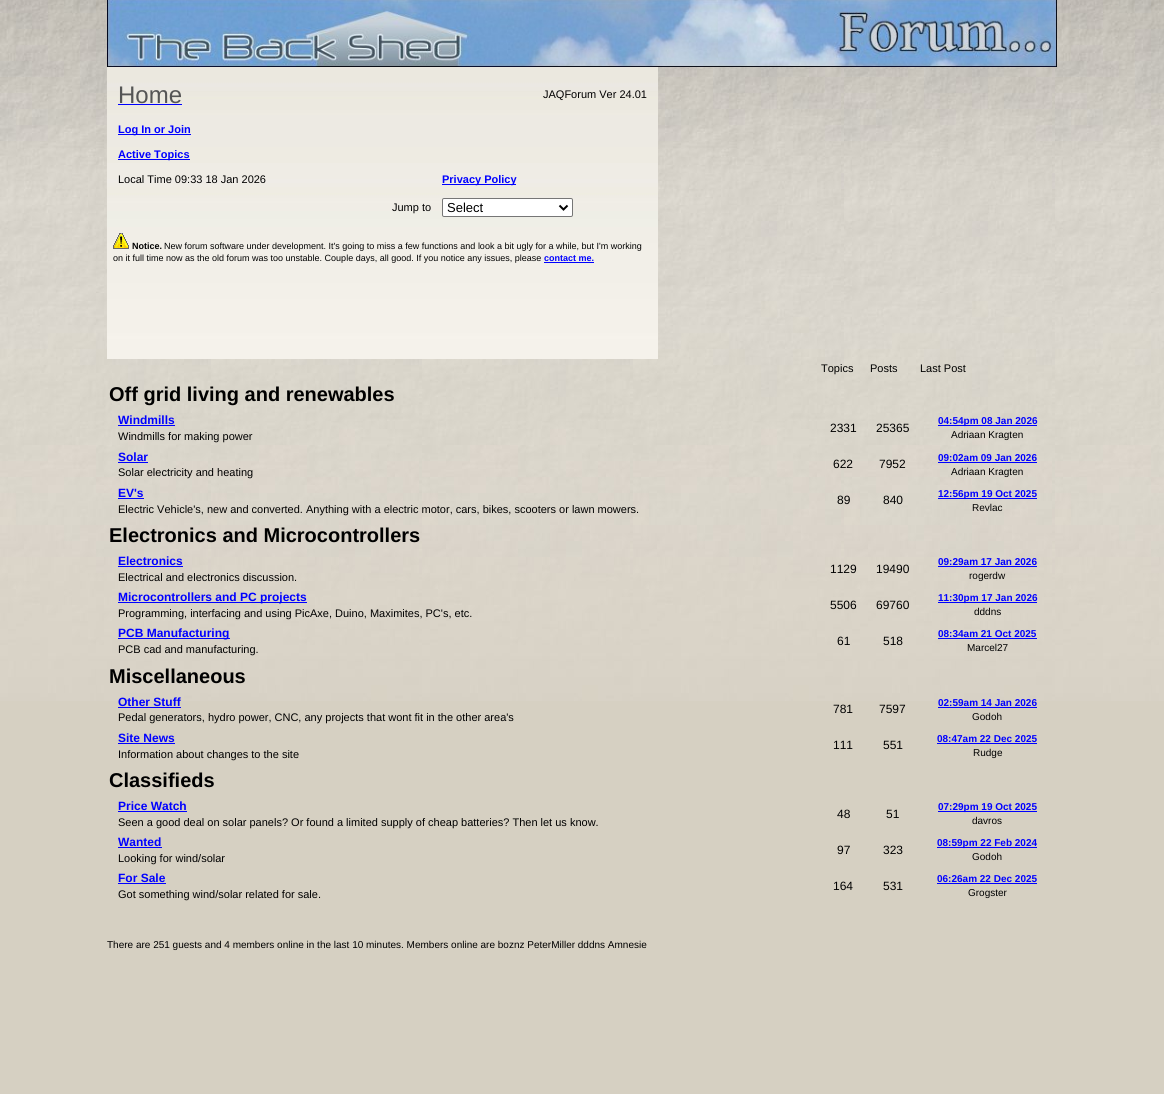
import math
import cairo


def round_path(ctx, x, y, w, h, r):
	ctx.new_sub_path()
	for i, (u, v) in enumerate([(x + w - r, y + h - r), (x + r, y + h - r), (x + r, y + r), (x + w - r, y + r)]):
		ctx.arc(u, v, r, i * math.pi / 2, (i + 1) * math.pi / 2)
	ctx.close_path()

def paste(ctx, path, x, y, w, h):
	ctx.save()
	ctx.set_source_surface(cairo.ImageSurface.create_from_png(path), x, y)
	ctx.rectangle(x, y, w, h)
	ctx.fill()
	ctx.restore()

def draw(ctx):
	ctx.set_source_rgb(0.839, 0.816, 0.761)
	ctx.paint()
	paste(ctx, 'media/1.png', 0, 0, 1164, 701)
	paste(ctx, 'media/2.png', 107, 0, 950, 67)
	paste(ctx, 'media/3.png', 107, 67, 551, 292)
	ctx.select_font_face('Liberation Sans')
	ctx.set_font_size(24)
	ctx.set_source_rgb(0.333, 0.333, 0.333)
	ctx.move_to(118, 103)
	ctx.show_text('Home')
	ctx.set_source_rgb(0, 0, 1)
	ctx.rectangle(118, 104, 64, 1)
	ctx.fill()
	ctx.set_font_size(11)
	ctx.set_source_rgb(0, 0, 0)
	ctx.move_to(543, 98)
	ctx.show_text('JAQForum Ver 24.01')
	ctx.set_source_rgb(0, 0, 1)
	ctx.rectangle(118, 134, 73, 1)
	ctx.fill()
	ctx.select_font_face('Liberation Sans', cairo.FONT_SLANT_NORMAL, cairo.FONT_WEIGHT_BOLD)
	ctx.move_to(118, 133)
	ctx.show_text('Log In or Join')
	ctx.rectangle(118, 159, 72, 1)
	ctx.fill()
	ctx.move_to(118, 158)
	ctx.show_text('Active Topics')
	ctx.select_font_face('Liberation Sans')
	ctx.set_source_rgb(0, 0, 0)
	ctx.move_to(118, 183)
	ctx.show_text('Local Time 09:33 18 Jan 2026')
	ctx.set_source_rgb(0, 0, 1)
	ctx.rectangle(442, 184, 74, 1)
	ctx.fill()
	ctx.select_font_face('Liberation Sans', cairo.FONT_SLANT_NORMAL, cairo.FONT_WEIGHT_BOLD)
	ctx.move_to(442, 183)
	ctx.show_text('Privacy Policy')
	ctx.select_font_face('Liberation Sans')
	ctx.set_source_rgb(0, 0, 0)
	ctx.move_to(392, 211)
	ctx.show_text('Jump to')
	ctx.set_source_rgb(1, 1, 1)
	round_path(ctx, 442.5, 198.5, 130, 18, 1.5)
	ctx.fill_preserve()
	ctx.set_source_rgb(0.463, 0.463, 0.463)
	ctx.set_line_width(1)
	ctx.stroke()
	ctx.new_path()
	ctx.move_to(559.5, 205.5)
	ctx.line_to(563.5, 209.5)
	ctx.line_to(567.5, 205.5)
	ctx.set_source_rgb(0, 0, 0)
	ctx.set_line_width(2)
	ctx.stroke()
	ctx.set_font_size(13)
	ctx.move_to(447, 212)
	ctx.show_text('Select')
	paste(ctx, 'media/4.png', 113, 233, 16, 16)
	ctx.select_font_face('Liberation Sans', cairo.FONT_SLANT_NORMAL, cairo.FONT_WEIGHT_BOLD)
	ctx.set_font_size(9)
	ctx.move_to(132, 249)
	ctx.show_text('Notice.')
	ctx.select_font_face('Liberation Sans')
	ctx.move_to(164, 249)
	ctx.show_text('New forum software under development. It\'s going to miss a few functions and look a bit ugly for a while, but I\'m working')
	ctx.move_to(113, 261)
	ctx.show_text('on it full time now as the old forum was too unstable. Couple days, all good. If you notice any issues, please')
	ctx.select_font_face('Liberation Sans', cairo.FONT_SLANT_NORMAL, cairo.FONT_WEIGHT_BOLD)
	ctx.set_source_rgb(0, 0, 1)
	ctx.move_to(544, 261)
	ctx.show_text('contact me.')
	ctx.rectangle(544, 262, 50, 1)
	ctx.fill()
	ctx.select_font_face('Liberation Sans')
	ctx.set_font_size(11)
	ctx.set_source_rgb(0, 0, 0)
	for x, y, s in [
		(821, 372, 'Topics'),
		(870, 372, 'Posts'),
		(920, 372, 'Last Post'),
	]:
		ctx.move_to(x, y)
		ctx.show_text(s)
	ctx.select_font_face('Liberation Sans', cairo.FONT_SLANT_NORMAL, cairo.FONT_WEIGHT_BOLD)
	ctx.set_font_size(20)
	ctx.move_to(109, 401)
	ctx.show_text('Off grid living and renewables')
	ctx.set_font_size(12)
	ctx.set_source_rgb(0, 0, 1)
	ctx.move_to(118, 424)
	ctx.show_text('Windmills')
	ctx.rectangle(118, 425, 57, 1)
	ctx.fill()
	ctx.select_font_face('Liberation Sans')
	ctx.set_font_size(11)
	ctx.set_source_rgb(0, 0, 0)
	ctx.move_to(118, 440)
	ctx.show_text('Windmills for making power')
	ctx.set_font_size(12)
	ctx.move_to(830, 432)
	ctx.show_text('2331')
	ctx.move_to(876, 432)
	ctx.show_text('25365')
	ctx.set_source_rgb(0, 0, 1)
	ctx.rectangle(938, 425, 99, 1)
	ctx.fill()
	ctx.select_font_face('Liberation Sans', cairo.FONT_SLANT_NORMAL, cairo.FONT_WEIGHT_BOLD)
	ctx.set_font_size(10)
	ctx.move_to(938, 424)
	ctx.show_text('04:54pm 08 Jan 2026')
	ctx.select_font_face('Liberation Sans')
	ctx.set_source_rgb(0, 0, 0)
	ctx.move_to(951, 438)
	ctx.show_text('Adriaan Kragten')
	ctx.select_font_face('Liberation Sans', cairo.FONT_SLANT_NORMAL, cairo.FONT_WEIGHT_BOLD)
	ctx.set_font_size(12)
	ctx.set_source_rgb(0, 0, 1)
	ctx.move_to(118, 461)
	ctx.show_text('Solar')
	ctx.rectangle(118, 462, 30, 1)
	ctx.fill()
	ctx.select_font_face('Liberation Sans')
	ctx.set_font_size(11)
	ctx.set_source_rgb(0, 0, 0)
	ctx.move_to(118, 476)
	ctx.show_text('Solar electricity and heating')
	ctx.set_font_size(12)
	ctx.move_to(833, 468)
	ctx.show_text('622')
	ctx.move_to(879, 468)
	ctx.show_text('7952')
	ctx.select_font_face('Liberation Sans', cairo.FONT_SLANT_NORMAL, cairo.FONT_WEIGHT_BOLD)
	ctx.set_font_size(10)
	ctx.set_source_rgb(0, 0, 1)
	ctx.move_to(938, 461)
	ctx.show_text('09:02am 09 Jan 2026')
	ctx.rectangle(938, 462, 99, 1)
	ctx.fill()
	ctx.select_font_face('Liberation Sans')
	ctx.set_source_rgb(0, 0, 0)
	ctx.move_to(951, 475)
	ctx.show_text('Adriaan Kragten')
	ctx.select_font_face('Liberation Sans', cairo.FONT_SLANT_NORMAL, cairo.FONT_WEIGHT_BOLD)
	ctx.set_font_size(12)
	ctx.set_source_rgb(0, 0, 1)
	ctx.move_to(118, 497)
	ctx.show_text('EV\'s')
	ctx.rectangle(118, 498, 26, 1)
	ctx.fill()
	ctx.select_font_face('Liberation Sans')
	ctx.set_font_size(11)
	ctx.set_source_rgb(0, 0, 0)
	ctx.move_to(118, 513)
	ctx.show_text('Electric Vehicle\'s, new and converted. Anything with a electric motor, cars, bikes, scooters or lawn mowers.')
	ctx.set_font_size(12)
	ctx.move_to(837, 504)
	ctx.show_text('89')
	ctx.move_to(883, 504)
	ctx.show_text('840')
	ctx.set_source_rgb(0, 0, 1)
	ctx.rectangle(938, 498, 99, 1)
	ctx.fill()
	ctx.select_font_face('Liberation Sans', cairo.FONT_SLANT_NORMAL, cairo.FONT_WEIGHT_BOLD)
	ctx.set_font_size(10)
	ctx.move_to(938, 497)
	ctx.show_text('12:56pm 19 Oct 2025')
	ctx.select_font_face('Liberation Sans')
	ctx.set_source_rgb(0, 0, 0)
	ctx.move_to(972, 511)
	ctx.show_text('Revlac')
	ctx.select_font_face('Liberation Sans', cairo.FONT_SLANT_NORMAL, cairo.FONT_WEIGHT_BOLD)
	ctx.set_font_size(20)
	ctx.move_to(109, 542)
	ctx.show_text('Electronics and Microcontrollers')
	ctx.set_font_size(12)
	ctx.set_source_rgb(0, 0, 1)
	ctx.move_to(118, 565)
	ctx.show_text('Electronics')
	ctx.rectangle(118, 566, 65, 1)
	ctx.fill()
	ctx.select_font_face('Liberation Sans')
	ctx.set_font_size(11)
	ctx.set_source_rgb(0, 0, 0)
	ctx.move_to(118, 581)
	ctx.show_text('Electrical and electronics discussion.')
	ctx.set_font_size(12)
	ctx.move_to(830, 573)
	ctx.show_text('1129')
	ctx.move_to(876, 573)
	ctx.show_text('19490')
	ctx.select_font_face('Liberation Sans', cairo.FONT_SLANT_NORMAL, cairo.FONT_WEIGHT_BOLD)
	ctx.set_font_size(10)
	ctx.set_source_rgb(0, 0, 1)
	ctx.move_to(938, 565)
	ctx.show_text('09:29am 17 Jan 2026')
	ctx.rectangle(938, 566, 99, 1)
	ctx.fill()
	ctx.select_font_face('Liberation Sans')
	ctx.set_source_rgb(0, 0, 0)
	ctx.move_to(969, 579)
	ctx.show_text('rogerdw')
	ctx.set_source_rgb(0, 0, 1)
	ctx.rectangle(118, 602, 189, 1)
	ctx.fill()
	ctx.select_font_face('Liberation Sans', cairo.FONT_SLANT_NORMAL, cairo.FONT_WEIGHT_BOLD)
	ctx.set_font_size(12)
	ctx.move_to(118, 601)
	ctx.show_text('Microcontrollers and PC projects')
	ctx.select_font_face('Liberation Sans')
	ctx.set_font_size(11)
	ctx.set_source_rgb(0, 0, 0)
	ctx.move_to(118, 617)
	ctx.show_text('Programming, interfacing and using PicAxe, Duino, Maximites, PC\'s, etc.')
	ctx.set_font_size(12)
	ctx.move_to(830, 609)
	ctx.show_text('5506')
	ctx.move_to(876, 609)
	ctx.show_text('69760')
	ctx.set_source_rgb(0, 0, 1)
	ctx.rectangle(938, 602, 99, 1)
	ctx.fill()
	ctx.select_font_face('Liberation Sans', cairo.FONT_SLANT_NORMAL, cairo.FONT_WEIGHT_BOLD)
	ctx.set_font_size(10)
	ctx.move_to(938, 601)
	ctx.show_text('11:30pm 17 Jan 2026')
	ctx.select_font_face('Liberation Sans')
	ctx.set_source_rgb(0, 0, 0)
	ctx.move_to(974, 615)
	ctx.show_text('dddns')
	ctx.set_source_rgb(0, 0, 1)
	ctx.rectangle(118, 638, 112, 1)
	ctx.fill()
	ctx.select_font_face('Liberation Sans', cairo.FONT_SLANT_NORMAL, cairo.FONT_WEIGHT_BOLD)
	ctx.set_font_size(12)
	ctx.move_to(118, 637)
	ctx.show_text('PCB Manufacturing')
	ctx.select_font_face('Liberation Sans')
	ctx.set_font_size(11)
	ctx.set_source_rgb(0, 0, 0)
	ctx.move_to(118, 653)
	ctx.show_text('PCB cad and manufacturing.')
	ctx.set_font_size(12)
	ctx.move_to(837, 645)
	ctx.show_text('61')
	ctx.move_to(883, 645)
	ctx.show_text('518')
	ctx.select_font_face('Liberation Sans', cairo.FONT_SLANT_NORMAL, cairo.FONT_WEIGHT_BOLD)
	ctx.set_font_size(10)
	ctx.set_source_rgb(0, 0, 1)
	ctx.move_to(938, 637)
	ctx.show_text('08:34am 21 Oct 2025')
	ctx.rectangle(938, 638, 99, 1)
	ctx.fill()
	ctx.select_font_face('Liberation Sans')
	ctx.set_source_rgb(0, 0, 0)
	ctx.move_to(967, 651)
	ctx.show_text('Marcel27')
	ctx.select_font_face('Liberation Sans', cairo.FONT_SLANT_NORMAL, cairo.FONT_WEIGHT_BOLD)
	ctx.set_font_size(20)
	ctx.move_to(109, 683)
	ctx.show_text('Miscellaneous')
	ctx.set_font_size(12)
	ctx.set_source_rgb(0, 0, 1)
	ctx.move_to(118, 706)
	ctx.show_text('Other Stuff')
	ctx.rectangle(118, 707, 63, 1)
	ctx.fill()
	ctx.select_font_face('Liberation Sans')
	ctx.set_font_size(11)
	ctx.set_source_rgb(0, 0, 0)
	ctx.move_to(118, 721)
	ctx.show_text('Pedal generators, hydro power, CNC, any projects that wont fit in the other area\'s')
	ctx.set_font_size(12)
	ctx.move_to(833, 713)
	ctx.show_text('781')
	ctx.move_to(879, 713)
	ctx.show_text('7597')
	ctx.select_font_face('Liberation Sans', cairo.FONT_SLANT_NORMAL, cairo.FONT_WEIGHT_BOLD)
	ctx.set_font_size(10)
	ctx.set_source_rgb(0, 0, 1)
	ctx.move_to(938, 706)
	ctx.show_text('02:59am 14 Jan 2026')
	ctx.rectangle(938, 707, 99, 1)
	ctx.fill()
	ctx.select_font_face('Liberation Sans')
	ctx.set_source_rgb(0, 0, 0)
	ctx.move_to(972, 720)
	ctx.show_text('Godoh')
	ctx.select_font_face('Liberation Sans', cairo.FONT_SLANT_NORMAL, cairo.FONT_WEIGHT_BOLD)
	ctx.set_font_size(12)
	ctx.set_source_rgb(0, 0, 1)
	ctx.move_to(118, 742)
	ctx.show_text('Site News')
	ctx.rectangle(118, 743, 57, 1)
	ctx.fill()
	ctx.select_font_face('Liberation Sans')
	ctx.set_font_size(11)
	ctx.set_source_rgb(0, 0, 0)
	ctx.move_to(118, 758)
	ctx.show_text('Information about changes to the site')
	ctx.set_font_size(12)
	ctx.move_to(833, 749)
	ctx.show_text('111')
	ctx.move_to(883, 749)
	ctx.show_text('551')
	ctx.select_font_face('Liberation Sans', cairo.FONT_SLANT_NORMAL, cairo.FONT_WEIGHT_BOLD)
	ctx.set_font_size(10)
	ctx.set_source_rgb(0, 0, 1)
	ctx.move_to(937, 742)
	ctx.show_text('08:47am 22 Dec 2025')
	ctx.rectangle(937, 743, 100, 1)
	ctx.fill()
	ctx.select_font_face('Liberation Sans')
	ctx.set_source_rgb(0, 0, 0)
	ctx.move_to(973, 756)
	ctx.show_text('Rudge')
	ctx.select_font_face('Liberation Sans', cairo.FONT_SLANT_NORMAL, cairo.FONT_WEIGHT_BOLD)
	ctx.set_font_size(20)
	ctx.move_to(109, 787)
	ctx.show_text('Classifieds')
	ctx.set_font_size(12)
	ctx.set_source_rgb(0, 0, 1)
	ctx.move_to(118, 810)
	ctx.show_text('Price Watch')
	ctx.rectangle(118, 811, 69, 1)
	ctx.fill()
	ctx.select_font_face('Liberation Sans')
	ctx.set_font_size(11)
	ctx.set_source_rgb(0, 0, 0)
	ctx.move_to(118, 826)
	ctx.show_text('Seen a good deal on solar panels? Or found a limited supply of cheap batteries? Then let us know.')
	ctx.set_font_size(12)
	ctx.move_to(837, 818)
	ctx.show_text('48')
	ctx.move_to(886, 818)
	ctx.show_text('51')
	ctx.set_source_rgb(0, 0, 1)
	ctx.rectangle(938, 811, 99, 1)
	ctx.fill()
	ctx.select_font_face('Liberation Sans', cairo.FONT_SLANT_NORMAL, cairo.FONT_WEIGHT_BOLD)
	ctx.set_font_size(10)
	ctx.move_to(938, 810)
	ctx.show_text('07:29pm 19 Oct 2025')
	ctx.select_font_face('Liberation Sans')
	ctx.set_source_rgb(0, 0, 0)
	ctx.move_to(972, 824)
	ctx.show_text('davros')
	ctx.select_font_face('Liberation Sans', cairo.FONT_SLANT_NORMAL, cairo.FONT_WEIGHT_BOLD)
	ctx.set_font_size(12)
	ctx.set_source_rgb(0, 0, 1)
	ctx.move_to(118, 846)
	ctx.show_text('Wanted')
	ctx.rectangle(118, 847, 44, 1)
	ctx.fill()
	ctx.select_font_face('Liberation Sans')
	ctx.set_font_size(11)
	ctx.set_source_rgb(0, 0, 0)
	ctx.move_to(118, 862)
	ctx.show_text('Looking for wind/solar')
	ctx.set_font_size(12)
	ctx.move_to(837, 854)
	ctx.show_text('97')
	ctx.move_to(883, 854)
	ctx.show_text('323')
	ctx.set_source_rgb(0, 0, 1)
	ctx.rectangle(937, 847, 100, 1)
	ctx.fill()
	ctx.select_font_face('Liberation Sans', cairo.FONT_SLANT_NORMAL, cairo.FONT_WEIGHT_BOLD)
	ctx.set_font_size(10)
	ctx.move_to(937, 846)
	ctx.show_text('08:59pm 22 Feb 2024')
	ctx.select_font_face('Liberation Sans')
	ctx.set_source_rgb(0, 0, 0)
	ctx.move_to(972, 860)
	ctx.show_text('Godoh')
	ctx.select_font_face('Liberation Sans', cairo.FONT_SLANT_NORMAL, cairo.FONT_WEIGHT_BOLD)
	ctx.set_font_size(12)
	ctx.set_source_rgb(0, 0, 1)
	ctx.move_to(118, 882)
	ctx.show_text('For Sale')
	ctx.rectangle(118, 883, 48, 1)
	ctx.fill()
	ctx.select_font_face('Liberation Sans')
	ctx.set_font_size(11)
	ctx.set_source_rgb(0, 0, 0)
	ctx.move_to(118, 898)
	ctx.show_text('Got something wind/solar related for sale.')
	ctx.set_font_size(12)
	ctx.move_to(833, 890)
	ctx.show_text('164')
	ctx.move_to(883, 890)
	ctx.show_text('531')
	ctx.select_font_face('Liberation Sans', cairo.FONT_SLANT_NORMAL, cairo.FONT_WEIGHT_BOLD)
	ctx.set_font_size(10)
	ctx.set_source_rgb(0, 0, 1)
	ctx.move_to(937, 882)
	ctx.show_text('06:26am 22 Dec 2025')
	ctx.rectangle(937, 883, 100, 1)
	ctx.fill()
	ctx.select_font_face('Liberation Sans')
	ctx.set_source_rgb(0, 0, 0)
	ctx.move_to(968, 896)
	ctx.show_text('Grogster')
	ctx.move_to(107, 948)
	ctx.show_text('There are 251 guests and 4 members online in the last 10 minutes. Members online are boznz PeterMiller dddns Amnesie')


surface = cairo.ImageSurface(cairo.FORMAT_RGB24, 1164, 1094)
ctx = cairo.Context(surface)
options = cairo.FontOptions()
options.set_hint_metrics(cairo.HINT_METRICS_OFF)
options.set_hint_style(cairo.HINT_STYLE_NONE)
ctx.set_font_options(options)
ctx.set_miter_limit(4)
draw(ctx)
surface.write_to_png('image.png')
